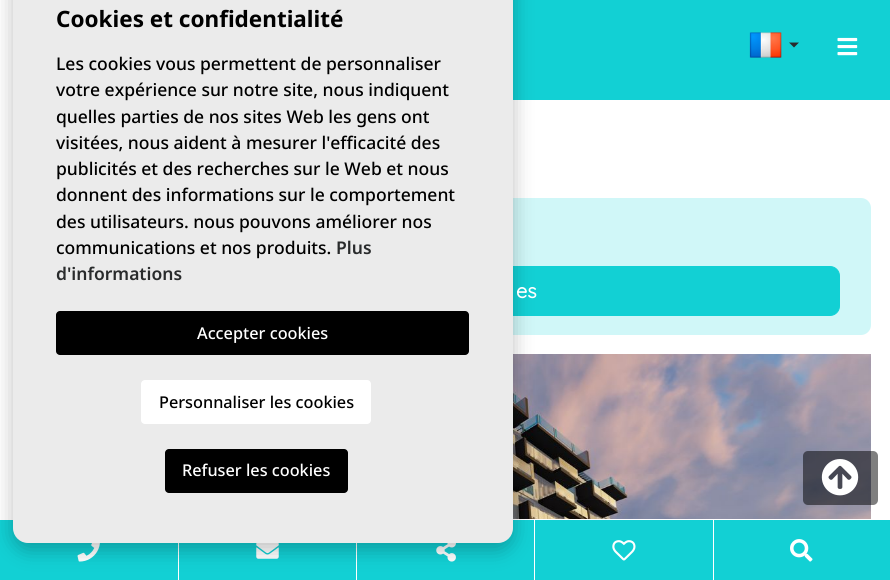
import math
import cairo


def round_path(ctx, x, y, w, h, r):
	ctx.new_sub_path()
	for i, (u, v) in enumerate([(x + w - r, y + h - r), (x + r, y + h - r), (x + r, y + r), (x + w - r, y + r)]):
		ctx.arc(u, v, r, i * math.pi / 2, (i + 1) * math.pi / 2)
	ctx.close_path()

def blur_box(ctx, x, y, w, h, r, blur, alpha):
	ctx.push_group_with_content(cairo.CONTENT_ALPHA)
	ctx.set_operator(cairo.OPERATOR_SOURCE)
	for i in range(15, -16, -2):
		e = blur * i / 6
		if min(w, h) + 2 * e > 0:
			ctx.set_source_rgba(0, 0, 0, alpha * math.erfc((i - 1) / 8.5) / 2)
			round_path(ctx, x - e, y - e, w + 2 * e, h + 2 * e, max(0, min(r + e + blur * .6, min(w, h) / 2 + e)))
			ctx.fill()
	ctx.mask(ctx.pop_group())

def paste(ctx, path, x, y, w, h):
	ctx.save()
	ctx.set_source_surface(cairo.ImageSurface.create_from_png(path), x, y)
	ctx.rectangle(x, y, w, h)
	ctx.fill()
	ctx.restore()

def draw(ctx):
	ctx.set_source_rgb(1, 1, 1)
	ctx.paint()
	ctx.set_source_rgb(0.071, 0.816, 0.831)
	ctx.rectangle(513, 0, 377, 100)
	ctx.fill()
	ctx.set_source_rgb(0.816, 0.965, 0.969)
	round_path(ctx, 19, 198, 852, 137, 10)
	ctx.fill()
	ctx.set_source_rgb(0.071, 0.816, 0.831)
	round_path(ctx, 50.5, 266.5, 789, 49, 9.5)
	ctx.fill_preserve()
	ctx.set_line_width(1)
	ctx.stroke()
	paste(ctx, 'media/3.png', 513, 354, 358, 165)
	ctx.rectangle(0, 520, 890, 60)
	ctx.fill()
	paste(ctx, 'media/5.png', 77, 543, 23, 19)
	ctx.set_source_rgb(1, 1, 1)
	ctx.rectangle(178, 543, 1, 37)
	ctx.fill()
	paste(ctx, 'media/6.png', 256, 543, 23, 16)
	ctx.rectangle(356, 543, 1, 37)
	ctx.fill()
	paste(ctx, 'media/7.png', 436, 543, 20, 19)
	ctx.rectangle(534, 520, 1, 60)
	ctx.fill()
	ctx.set_source_rgb(0, 0, 0)
	blur_box(ctx, 13, -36, 500, 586, 15, 10, 0.25)
	ctx.set_source_rgb(0.918, 0.918, 0.918)
	round_path(ctx, 13, -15, 500, 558, 15)
	ctx.fill()
	ctx.select_font_face('Noto Sans', cairo.FONT_SLANT_NORMAL, cairo.FONT_WEIGHT_BOLD)
	ctx.set_font_size(22.5)
	ctx.set_source_rgb(0, 0, 0)
	ctx.move_to(56, 27)
	ctx.show_text('Cookies et confidentialité')
	ctx.select_font_face('Noto Sans Medium')
	ctx.set_font_size(17.5)
	for x, y, s in [
		(56, 70, 'Les cookies vous permettent de personnaliser'),
		(56, 96, 'votre expérience sur notre site, nous indiquent'),
		(56, 123, 'quelles parties de nos sites Web les gens ont'),
		(56, 149, 'visitées, nous aident à mesurer l\'efficacité des'),
		(56, 175, 'publicités et des recherches sur le Web et nous'),
		(56, 201, 'donnent des informations sur le comportement'),
		(56, 228, 'des utilisateurs. nous pouvons améliorer nos'),
		(56, 254, 'communications et nos produits.'),
	]:
		ctx.move_to(x, y)
		ctx.show_text(s)
	ctx.select_font_face('Noto Sans SemiBold')
	ctx.set_source_rgb(0.161, 0.169, 0.173)
	ctx.move_to(336, 254)
	ctx.show_text('Plus')
	ctx.move_to(56, 280)
	ctx.show_text('d\'informations')
	ctx.set_source_rgb(0, 0, 0)
	round_path(ctx, 56, 311, 413, 44, 4)
	ctx.fill()
	ctx.select_font_face('Noto Sans Medium')
	ctx.set_font_size(16.25)
	ctx.set_source_rgb(1, 1, 1)
	ctx.move_to(197, 339)
	ctx.show_text('Accepter cookies')
	round_path(ctx, 141, 380, 230, 44, 4)
	ctx.fill()
	ctx.set_source_rgb(0, 0, 0)
	ctx.move_to(159, 408)
	ctx.show_text('Personnaliser les cookies')
	round_path(ctx, 165, 449, 183, 44, 4)
	ctx.fill()
	ctx.set_source_rgb(1, 1, 1)
	ctx.move_to(182, 476)
	ctx.show_text('Refuser les cookies')
	paste(ctx, 'media/1.png', 749, 32, 33, 26)
	ctx.set_source_rgb(0.161, 0.169, 0.173)
	ctx.new_path()
	ctx.move_to(789, 42.5)
	ctx.line_to(799, 42.5)
	ctx.line_to(794, 47.5)
	ctx.close_path()
	ctx.fill()
	paste(ctx, 'media/2.png', 837, 37, 21, 19)
	ctx.select_font_face('Quicksand', cairo.FONT_SLANT_NORMAL, cairo.FONT_WEIGHT_BOLD)
	ctx.set_font_size(20)
	ctx.set_source_rgb(1, 1, 1)
	ctx.move_to(516, 298)
	ctx.show_text('es')
	ctx.set_source_rgba(0, 0, 0, 0.5)
	round_path(ctx, 803, 451, 75, 54, 5)
	ctx.fill()
	paste(ctx, 'media/4.png', 821, 459, 38, 37)
	paste(ctx, 'media/8.png', 612, 540, 24, 21)
	ctx.set_source_rgb(1, 1, 1)
	ctx.rectangle(713, 520, 1, 60)
	ctx.fill()
	paste(ctx, 'media/9.png', 790, 539, 23, 23)


surface = cairo.ImageSurface(cairo.FORMAT_RGB24, 890, 580)
ctx = cairo.Context(surface)
options = cairo.FontOptions()
options.set_hint_metrics(cairo.HINT_METRICS_OFF)
options.set_hint_style(cairo.HINT_STYLE_NONE)
ctx.set_font_options(options)
ctx.set_miter_limit(4)
draw(ctx)
surface.write_to_png('image.png')
